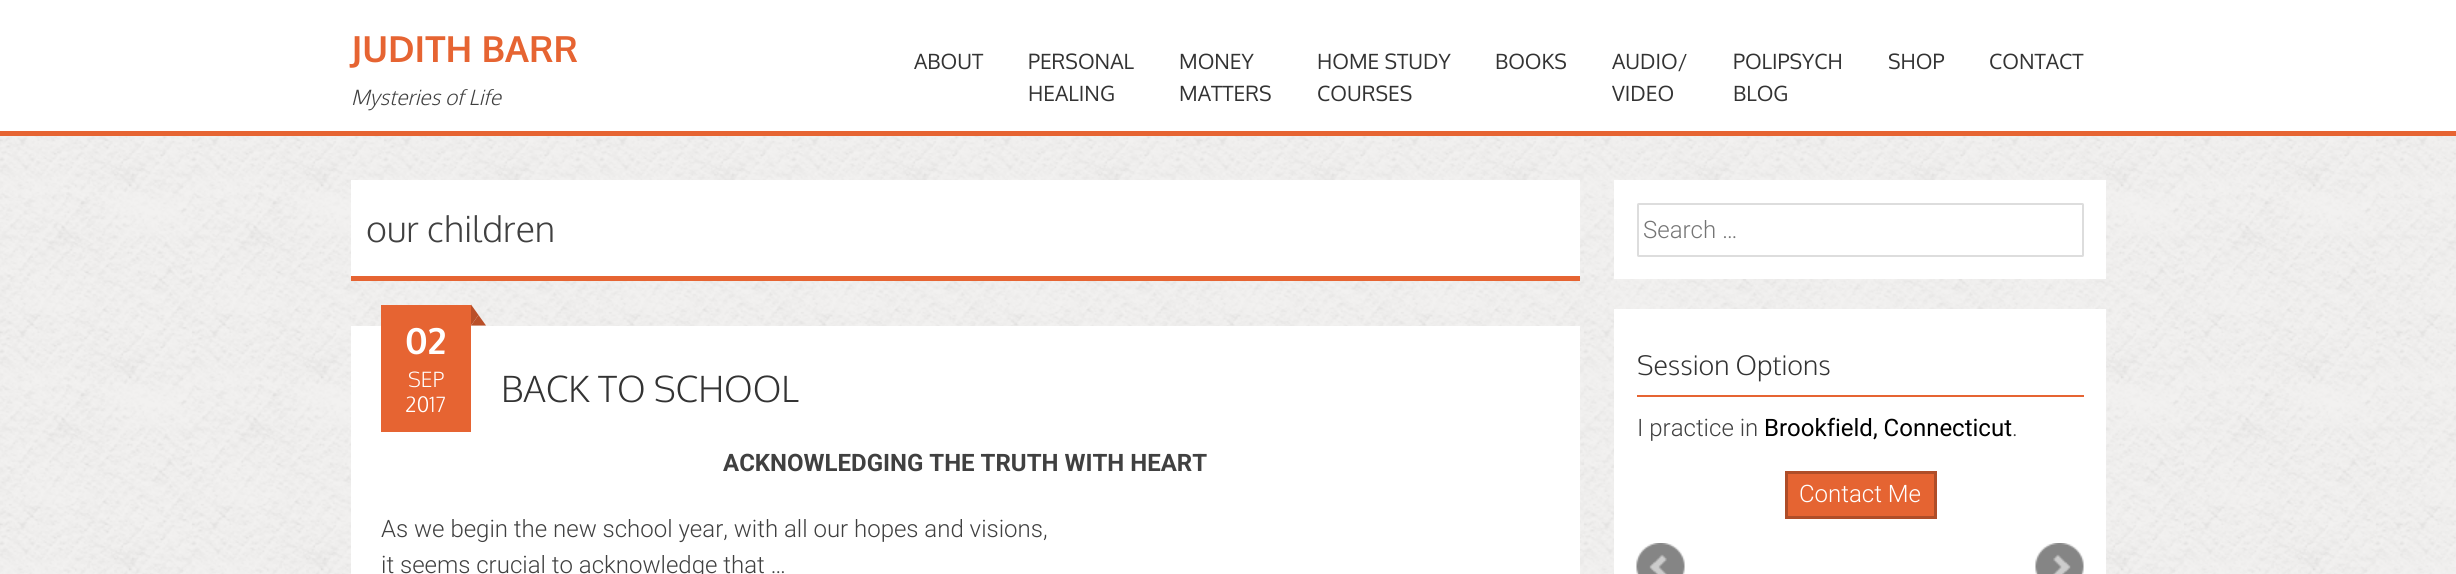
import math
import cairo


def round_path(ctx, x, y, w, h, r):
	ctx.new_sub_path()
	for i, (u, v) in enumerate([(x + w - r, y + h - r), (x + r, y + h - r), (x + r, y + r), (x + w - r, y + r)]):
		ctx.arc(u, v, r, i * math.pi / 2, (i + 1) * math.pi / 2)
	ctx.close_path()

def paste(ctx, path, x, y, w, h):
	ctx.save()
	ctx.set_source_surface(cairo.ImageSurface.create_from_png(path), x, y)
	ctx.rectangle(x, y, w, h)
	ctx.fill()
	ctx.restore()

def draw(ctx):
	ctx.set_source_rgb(1, 1, 1)
	ctx.paint()
	paste(ctx, 'media/1.png', 0, 136, 2456, 438)
	ctx.set_source_rgb(0.902, 0.392, 0.196)
	ctx.rectangle(0, 131, 2456, 5)
	ctx.fill()
	ctx.select_font_face('Oxygen', cairo.FONT_SLANT_NORMAL, cairo.FONT_WEIGHT_BOLD)
	ctx.set_font_size(36)
	ctx.move_to(351, 62)
	ctx.show_text('JUDITH BARR')
	ctx.select_font_face('Oxygen Light', cairo.FONT_SLANT_ITALIC)
	ctx.set_font_size(21)
	ctx.set_source_rgb(0.251, 0.251, 0.251)
	ctx.move_to(351, 105)
	ctx.show_text('Mysteries of Life')
	ctx.select_font_face('Oxygen')
	ctx.set_source_rgb(0.2, 0.2, 0.2)
	for x, y, s in [
		(914, 69, 'ABOUT'),
		(1028, 69, 'PERSONAL'),
		(1028, 101, 'HEALING'),
		(1179, 69, 'MONEY'),
		(1179, 101, 'MATTERS'),
		(1317, 69, 'HOME STUDY'),
		(1317, 101, 'COURSES'),
		(1495, 69, 'BOOKS'),
		(1612, 69, 'AUDIO/'),
		(1612, 101, 'VIDEO'),
		(1733, 69, 'POLIPSYCH'),
		(1733, 101, 'BLOG'),
		(1888, 69, 'SHOP'),
		(1989, 69, 'CONTACT'),
	]:
		ctx.move_to(x, y)
		ctx.show_text(s)
	ctx.set_source_rgb(1, 1, 1)
	ctx.rectangle(351, 180, 1229, 96)
	ctx.fill()
	ctx.set_source_rgb(0.902, 0.392, 0.196)
	ctx.rectangle(351, 276, 1229, 5)
	ctx.fill()
	ctx.select_font_face('Oxygen Light')
	ctx.set_font_size(36)
	ctx.set_source_rgb(0.251, 0.251, 0.251)
	ctx.move_to(366, 242)
	ctx.show_text('our children')
	ctx.set_source_rgb(1, 1, 1)
	ctx.rectangle(351, 326, 1229, 248)
	ctx.fill()
	ctx.set_source_rgb(0.902, 0.392, 0.196)
	ctx.rectangle(381, 305, 90, 127)
	ctx.fill()
	ctx.set_source_rgb(0.729, 0.31, 0.157)
	ctx.new_path()
	ctx.move_to(486, 325.5)
	ctx.line_to(471, 325.5)
	ctx.line_to(478.5, 315)
	ctx.close_path()
	ctx.fill()
	ctx.new_path()
	ctx.move_to(471, 325.5)
	ctx.line_to(471, 304.5)
	ctx.line_to(478.5, 315)
	ctx.close_path()
	ctx.fill()
	ctx.select_font_face('Oxygen', cairo.FONT_SLANT_NORMAL, cairo.FONT_WEIGHT_BOLD)
	ctx.set_source_rgb(1, 1, 1)
	ctx.move_to(405, 354)
	ctx.show_text('02')
	ctx.select_font_face('Oxygen Light')
	ctx.set_font_size(21)
	ctx.move_to(408, 387)
	ctx.show_text('SEP')
	ctx.move_to(405, 412)
	ctx.show_text('2017')
	ctx.set_font_size(36)
	ctx.set_source_rgb(0.2, 0.2, 0.2)
	ctx.move_to(501, 402)
	ctx.show_text('BACK TO SCHOOL')
	ctx.select_font_face('Roboto', cairo.FONT_SLANT_NORMAL, cairo.FONT_WEIGHT_BOLD)
	ctx.set_font_size(24)
	ctx.set_source_rgb(0.251, 0.251, 0.251)
	ctx.move_to(723, 471)
	ctx.show_text('ACKNOWLEDGING THE TRUTH WITH HEART')
	ctx.select_font_face('Roboto Light')
	ctx.move_to(381, 537)
	ctx.show_text('As we begin the new school year, with all our hopes and visions,')
	ctx.move_to(381, 573)
	ctx.show_text('it seems crucial to acknowledge that …')
	ctx.set_source_rgb(1, 1, 1)
	ctx.rectangle(1614, 180, 492, 99)
	ctx.fill()
	round_path(ctx, 1638, 204, 445, 52, 0.5)
	ctx.set_source_rgb(0.867, 0.867, 0.867)
	ctx.stroke()
	ctx.set_source_rgb(0.459, 0.459, 0.459)
	ctx.move_to(1643, 238)
	ctx.show_text('Search …')
	ctx.set_source_rgb(1, 1, 1)
	ctx.rectangle(1614, 309, 492, 265)
	ctx.fill()
	ctx.set_source_rgb(0.902, 0.392, 0.196)
	ctx.rectangle(1637, 395, 447, 2)
	ctx.fill()
	ctx.select_font_face('Oxygen Light')
	ctx.set_font_size(27)
	ctx.set_source_rgb(0.2, 0.2, 0.2)
	ctx.move_to(1637, 375)
	ctx.show_text('Session Options')
	ctx.select_font_face('Roboto Light')
	ctx.set_font_size(24)
	ctx.set_source_rgb(0.251, 0.251, 0.251)
	ctx.move_to(1637, 436)
	ctx.show_text('I practice in')
	ctx.select_font_face('Roboto')
	ctx.set_source_rgb(0, 0, 0)
	ctx.move_to(1764, 436)
	ctx.show_text('Brookfield, Connecticut')
	ctx.select_font_face('Roboto Light')
	ctx.set_source_rgb(0.251, 0.251, 0.251)
	ctx.move_to(2012, 436)
	ctx.show_text('.')
	ctx.set_source_rgb(0.898, 0.392, 0.196)
	ctx.rectangle(1786.5, 472.5, 149, 45)
	ctx.fill_preserve()
	ctx.set_source_rgb(0.686, 0.302, 0.157)
	ctx.set_line_width(3)
	ctx.stroke()
	ctx.set_source_rgb(1, 1, 1)
	ctx.move_to(1799, 502)
	ctx.show_text('Contact Me')
	paste(ctx, 'media/2.png', 1636, 543, 49, 31)
	paste(ctx, 'media/3.png', 2035, 543, 49, 31)


surface = cairo.ImageSurface(cairo.FORMAT_RGB24, 2456, 574)
ctx = cairo.Context(surface)
options = cairo.FontOptions()
options.set_hint_metrics(cairo.HINT_METRICS_OFF)
options.set_hint_style(cairo.HINT_STYLE_NONE)
ctx.set_font_options(options)
ctx.set_miter_limit(4)
draw(ctx)
surface.write_to_png('image.png')
